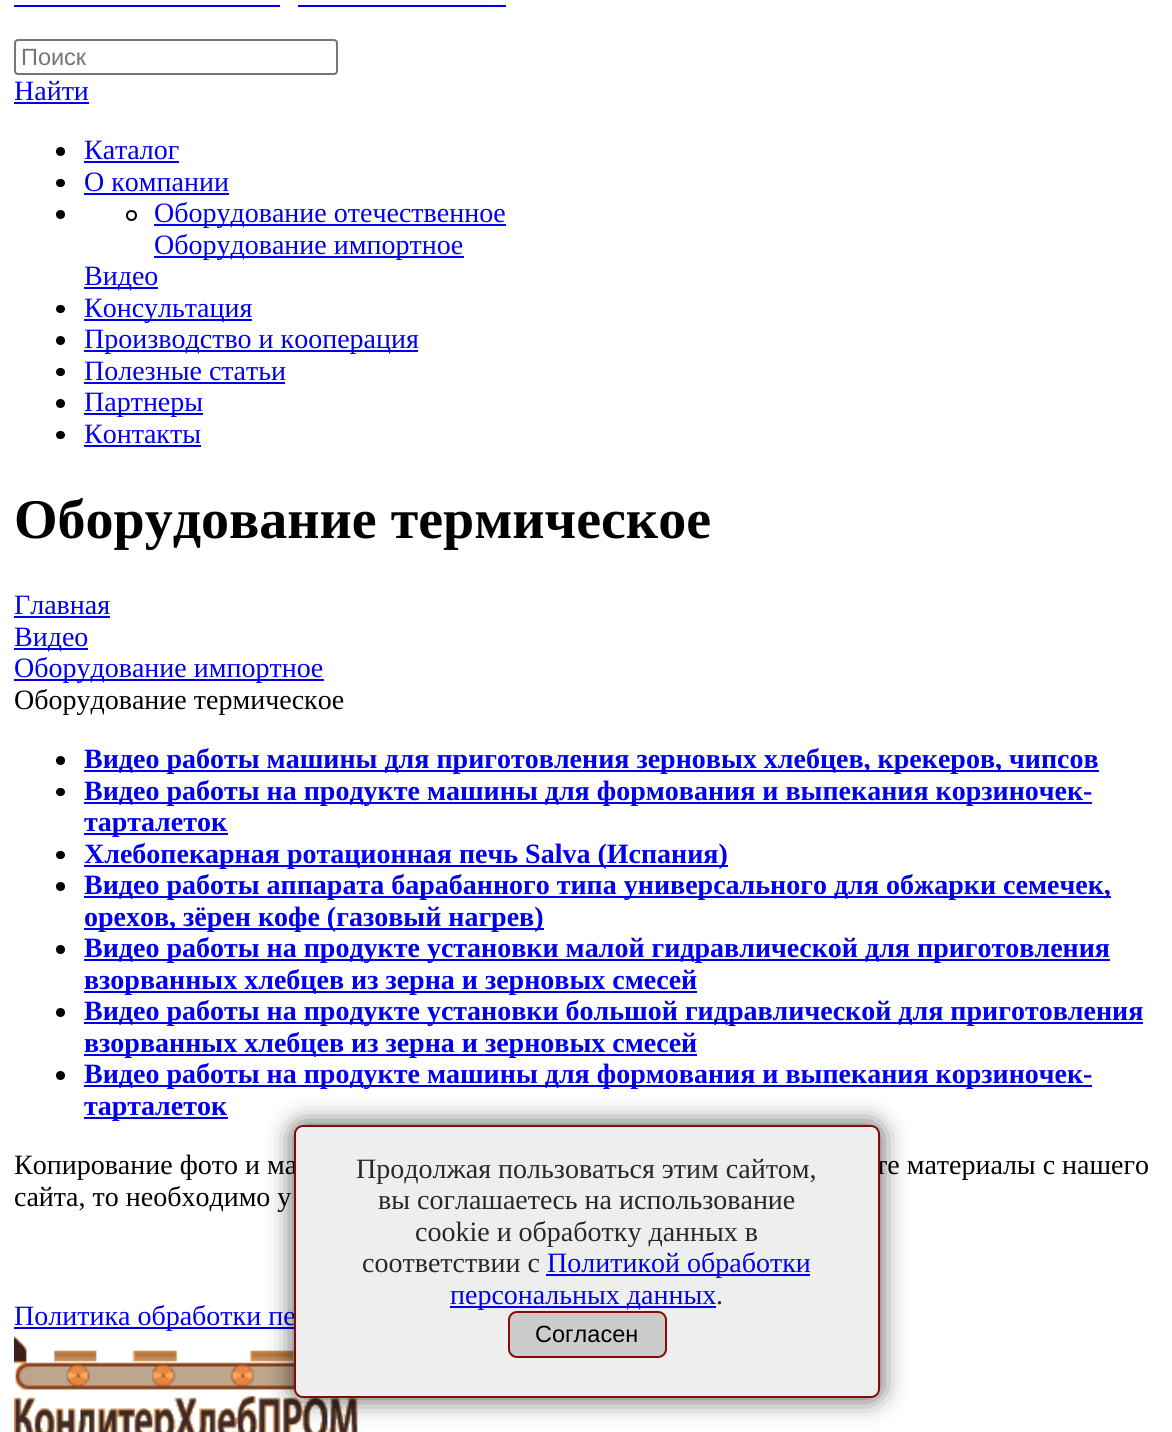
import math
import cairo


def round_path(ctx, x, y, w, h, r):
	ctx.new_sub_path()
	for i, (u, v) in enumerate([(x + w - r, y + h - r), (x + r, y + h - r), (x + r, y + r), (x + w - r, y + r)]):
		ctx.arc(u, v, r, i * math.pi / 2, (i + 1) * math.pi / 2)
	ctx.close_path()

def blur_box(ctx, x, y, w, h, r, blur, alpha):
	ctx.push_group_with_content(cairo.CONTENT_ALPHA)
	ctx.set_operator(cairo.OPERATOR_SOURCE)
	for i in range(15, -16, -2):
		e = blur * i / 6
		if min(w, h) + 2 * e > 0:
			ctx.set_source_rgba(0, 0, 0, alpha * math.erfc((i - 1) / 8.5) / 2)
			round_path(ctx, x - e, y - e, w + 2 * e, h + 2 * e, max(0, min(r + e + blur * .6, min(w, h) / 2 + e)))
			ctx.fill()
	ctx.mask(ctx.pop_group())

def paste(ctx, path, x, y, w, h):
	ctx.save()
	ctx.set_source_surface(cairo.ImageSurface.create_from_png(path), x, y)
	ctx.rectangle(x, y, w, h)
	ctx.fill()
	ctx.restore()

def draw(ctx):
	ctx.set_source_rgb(1, 1, 1)
	ctx.paint()
	ctx.set_source_rgb(0, 0, 0.933)
	ctx.rectangle(14, 5, 266, 2)
	ctx.fill()
	ctx.rectangle(298, 5, 208, 2)
	ctx.fill()
	round_path(ctx, 15, 40, 322, 34, 3)
	ctx.set_source_rgb(0.463, 0.463, 0.463)
	ctx.stroke()
	ctx.select_font_face('Liberation Sans')
	ctx.set_font_size(23.5)
	ctx.set_source_rgb(0.459, 0.459, 0.459)
	ctx.move_to(21, 65)
	ctx.show_text('Поиск')
	ctx.select_font_face('Liberation Serif')
	ctx.set_font_size(28)
	ctx.set_source_rgb(0, 0, 0.933)
	ctx.move_to(14, 100)
	ctx.show_text('Найти')
	ctx.rectangle(14, 102, 75, 2)
	ctx.fill()
	ctx.set_source_rgb(0, 0, 0)
	ctx.arc(60.5, 151.5, 4.5, 0, 2 * math.pi)
	ctx.fill()
	ctx.set_source_rgb(0, 0, 0.933)
	ctx.move_to(84, 159)
	ctx.show_text('Каталог')
	ctx.rectangle(84, 161, 95, 2)
	ctx.fill()
	ctx.set_source_rgb(0, 0, 0)
	round_path(ctx, 56, 179, 9, 8, 4)
	ctx.fill()
	ctx.set_source_rgb(0, 0, 0.933)
	ctx.move_to(84, 191)
	ctx.show_text('О компании')
	ctx.rectangle(84, 193, 145, 2)
	ctx.fill()
	ctx.set_source_rgb(0, 0, 0)
	ctx.arc(60.5, 214.5, 4.5, 0, 2 * math.pi)
	ctx.fill()
	ctx.arc(131.5, 215.5, 4.5, 0, 2 * math.pi)
	ctx.stroke()
	ctx.set_source_rgb(0, 0, 0.933)
	ctx.rectangle(154, 224, 352, 2)
	ctx.fill()
	ctx.move_to(154, 222)
	ctx.show_text('Оборудование отечественное')
	ctx.rectangle(154, 256, 310, 2)
	ctx.fill()
	ctx.move_to(154, 254)
	ctx.show_text('Оборудование импортное')
	ctx.rectangle(84, 287, 74, 2)
	ctx.fill()
	ctx.move_to(84, 285)
	ctx.show_text('Видео')
	ctx.set_source_rgb(0, 0, 0)
	round_path(ctx, 56, 305, 9, 8, 4)
	ctx.fill()
	ctx.set_source_rgb(0, 0, 0.933)
	ctx.rectangle(84, 319, 168, 2)
	ctx.fill()
	ctx.move_to(84, 317)
	ctx.show_text('Консультация')
	ctx.set_source_rgb(0, 0, 0)
	ctx.new_path()
	ctx.arc(60.5, 340.5, 4.5, 0, 2 * math.pi)
	ctx.fill()
	ctx.set_source_rgb(0, 0, 0.933)
	ctx.rectangle(84, 350, 334, 2)
	ctx.fill()
	ctx.move_to(84, 348)
	ctx.show_text('Производство и кооперация')
	ctx.set_source_rgb(0, 0, 0)
	round_path(ctx, 56, 368, 9, 8, 4)
	ctx.fill()
	ctx.set_source_rgb(0, 0, 0.933)
	ctx.move_to(84, 380)
	ctx.show_text('Полезные статьи')
	ctx.rectangle(84, 382, 201, 2)
	ctx.fill()
	ctx.set_source_rgb(0, 0, 0)
	ctx.arc(60.5, 403.5, 4.5, 0, 2 * math.pi)
	ctx.fill()
	ctx.set_source_rgb(0, 0, 0.933)
	ctx.rectangle(84, 413, 119, 2)
	ctx.fill()
	ctx.move_to(84, 411)
	ctx.show_text('Партнеры')
	ctx.set_source_rgb(0, 0, 0)
	round_path(ctx, 56, 431, 9, 8, 4)
	ctx.fill()
	ctx.set_source_rgb(0, 0, 0.933)
	ctx.move_to(84, 443)
	ctx.show_text('Контакты')
	ctx.rectangle(84, 445, 117, 2)
	ctx.fill()
	ctx.select_font_face('Liberation Serif', cairo.FONT_SLANT_NORMAL, cairo.FONT_WEIGHT_BOLD)
	ctx.set_font_size(56)
	ctx.set_source_rgb(0, 0, 0)
	ctx.move_to(14, 538)
	ctx.show_text('Оборудование термическое')
	ctx.select_font_face('Liberation Serif')
	ctx.set_font_size(28)
	ctx.set_source_rgb(0, 0, 0.933)
	ctx.move_to(14, 614)
	ctx.show_text('Главная')
	ctx.rectangle(14, 616, 96, 2)
	ctx.fill()
	ctx.rectangle(14, 648, 74, 2)
	ctx.fill()
	ctx.move_to(14, 646)
	ctx.show_text('Видео')
	ctx.rectangle(14, 679, 310, 2)
	ctx.fill()
	ctx.move_to(14, 677)
	ctx.show_text('Оборудование импортное')
	ctx.set_source_rgb(0, 0, 0)
	ctx.move_to(14, 709)
	ctx.show_text('Оборудование термическое')
	ctx.new_path()
	ctx.arc(60.5, 760.5, 4.5, 0, 2 * math.pi)
	ctx.fill()
	ctx.set_source_rgb(0, 0, 0.933)
	ctx.rectangle(84, 770, 1015, 2)
	ctx.fill()
	ctx.select_font_face('Liberation Serif', cairo.FONT_SLANT_NORMAL, cairo.FONT_WEIGHT_BOLD)
	ctx.move_to(84, 768)
	ctx.show_text('Видео работы машины для приготовления зерновых хлебцев, крекеров, чипсов')
	ctx.set_source_rgb(0, 0, 0)
	round_path(ctx, 56, 788, 9, 8, 4)
	ctx.fill()
	ctx.set_source_rgb(0, 0, 0.933)
	ctx.rectangle(84, 802, 1008, 2)
	ctx.fill()
	ctx.move_to(84, 800)
	ctx.show_text('Видео работы на продукте машины для формования и выпекания корзиночек-')
	ctx.rectangle(84, 833, 144, 2)
	ctx.fill()
	ctx.move_to(84, 831)
	ctx.show_text('тарталеток')
	ctx.set_source_rgb(0, 0, 0)
	round_path(ctx, 56, 851, 9, 8, 4)
	ctx.fill()
	ctx.set_source_rgb(0, 0, 0.933)
	ctx.rectangle(84, 865, 644, 2)
	ctx.fill()
	ctx.move_to(84, 863)
	ctx.show_text('Хлебопекарная ротационная печь Salva (Испания)')
	ctx.set_source_rgb(0, 0, 0)
	ctx.new_path()
	ctx.arc(60.5, 886.5, 4.5, 0, 2 * math.pi)
	ctx.fill()
	ctx.set_source_rgb(0, 0, 0.933)
	ctx.rectangle(84, 896, 1027, 2)
	ctx.fill()
	ctx.move_to(84, 894)
	ctx.show_text('Видео работы аппарата барабанного типа универсального для обжарки семечек,')
	ctx.rectangle(84, 928, 460, 2)
	ctx.fill()
	ctx.move_to(84, 926)
	ctx.show_text('орехов, зёрен кофе (газовый нагрев)')
	ctx.set_source_rgb(0, 0, 0)
	ctx.new_path()
	ctx.arc(60.5, 949.5, 4.5, 0, 2 * math.pi)
	ctx.fill()
	ctx.set_source_rgb(0, 0, 0.933)
	ctx.rectangle(84, 959, 1026, 2)
	ctx.fill()
	ctx.move_to(84, 957)
	ctx.show_text('Видео работы на продукте установки малой гидравлической для приготовления')
	ctx.rectangle(84, 991, 613, 2)
	ctx.fill()
	ctx.move_to(84, 989)
	ctx.show_text('взорванных хлебцев из зерна и зерновых смесей')
	ctx.set_source_rgb(0, 0, 0)
	ctx.new_path()
	ctx.arc(60.5, 1012.5, 4.5, 0, 2 * math.pi)
	ctx.fill()
	ctx.set_source_rgb(0, 0, 0.933)
	ctx.rectangle(84, 1022, 1059, 2)
	ctx.fill()
	ctx.move_to(84, 1020)
	ctx.show_text('Видео работы на продукте установки большой гидравлической для приготовления')
	ctx.rectangle(84, 1054, 613, 2)
	ctx.fill()
	ctx.move_to(84, 1052)
	ctx.show_text('взорванных хлебцев из зерна и зерновых смесей')
	ctx.set_source_rgb(0, 0, 0)
	ctx.new_path()
	ctx.arc(60.5, 1075.5, 4.5, 0, 2 * math.pi)
	ctx.fill()
	ctx.set_source_rgb(0, 0, 0.933)
	ctx.rectangle(84, 1085, 1008, 2)
	ctx.fill()
	ctx.move_to(84, 1083)
	ctx.show_text('Видео работы на продукте машины для формования и выпекания корзиночек-')
	ctx.rectangle(84, 1117, 144, 2)
	ctx.fill()
	ctx.move_to(84, 1115)
	ctx.show_text('тарталеток')
	ctx.select_font_face('Liberation Serif')
	ctx.set_source_rgb(0, 0, 0)
	for x, y, s in [
		(14, 1174, 'Копирование фото и ма'),
		(875, 1174, 'те материалы с нашего'),
		(14, 1206, 'сайта, то необходимо у'),
	]:
		ctx.move_to(x, y)
		ctx.show_text(s)
	ctx.set_source_rgb(0, 0, 0.933)
	ctx.rectangle(14, 1327, 280, 2)
	ctx.fill()
	ctx.move_to(14, 1325)
	ctx.show_text('Политика обработки пе')
	paste(ctx, 'media/1.png', 14, 1336, 344, 96)
	ctx.set_source_rgb(0, 0, 0)
	blur_box(ctx, 294, 1125, 586, 273, 9, 13, 0.7)
	ctx.set_source_rgb(0.933, 0.933, 0.933)
	round_path(ctx, 295, 1126, 584, 271, 8)
	ctx.fill_preserve()
	ctx.set_source_rgb(0.525, 0.043, 0.016)
	ctx.stroke()
	ctx.set_source_rgb(0.149, 0.157, 0.176)
	for x, y, s in [
		(356, 1178, 'Продолжая пользоваться этим сайтом,'),
		(378, 1209, 'вы соглашаетесь на использование'),
		(415, 1241, 'cookie и обработку данных в'),
		(362, 1272, 'соответствии с'),
	]:
		ctx.move_to(x, y)
		ctx.show_text(s)
	ctx.set_source_rgb(0, 0, 0.933)
	ctx.rectangle(546, 1274, 264, 2)
	ctx.fill()
	ctx.move_to(547, 1272)
	ctx.show_text('Политикой обработки')
	ctx.rectangle(450, 1306, 266, 2)
	ctx.fill()
	ctx.move_to(450, 1304)
	ctx.show_text('персональных данных')
	ctx.set_source_rgb(0.149, 0.157, 0.176)
	ctx.move_to(716, 1304)
	ctx.show_text('.')
	ctx.set_source_rgb(0.8, 0.8, 0.8)
	round_path(ctx, 509, 1312, 157, 45, 8)
	ctx.fill_preserve()
	ctx.set_source_rgb(0.525, 0.043, 0.016)
	ctx.stroke()
	ctx.select_font_face('Liberation Sans')
	ctx.set_font_size(23.5)
	ctx.set_source_rgb(0, 0, 0)
	ctx.move_to(535, 1342)
	ctx.show_text('Согласен')


surface = cairo.ImageSurface(cairo.FORMAT_RGB24, 1172, 1432)
ctx = cairo.Context(surface)
options = cairo.FontOptions()
options.set_hint_metrics(cairo.HINT_METRICS_OFF)
options.set_hint_style(cairo.HINT_STYLE_NONE)
ctx.set_font_options(options)
ctx.set_miter_limit(4)
draw(ctx)
surface.write_to_png('image.png')
